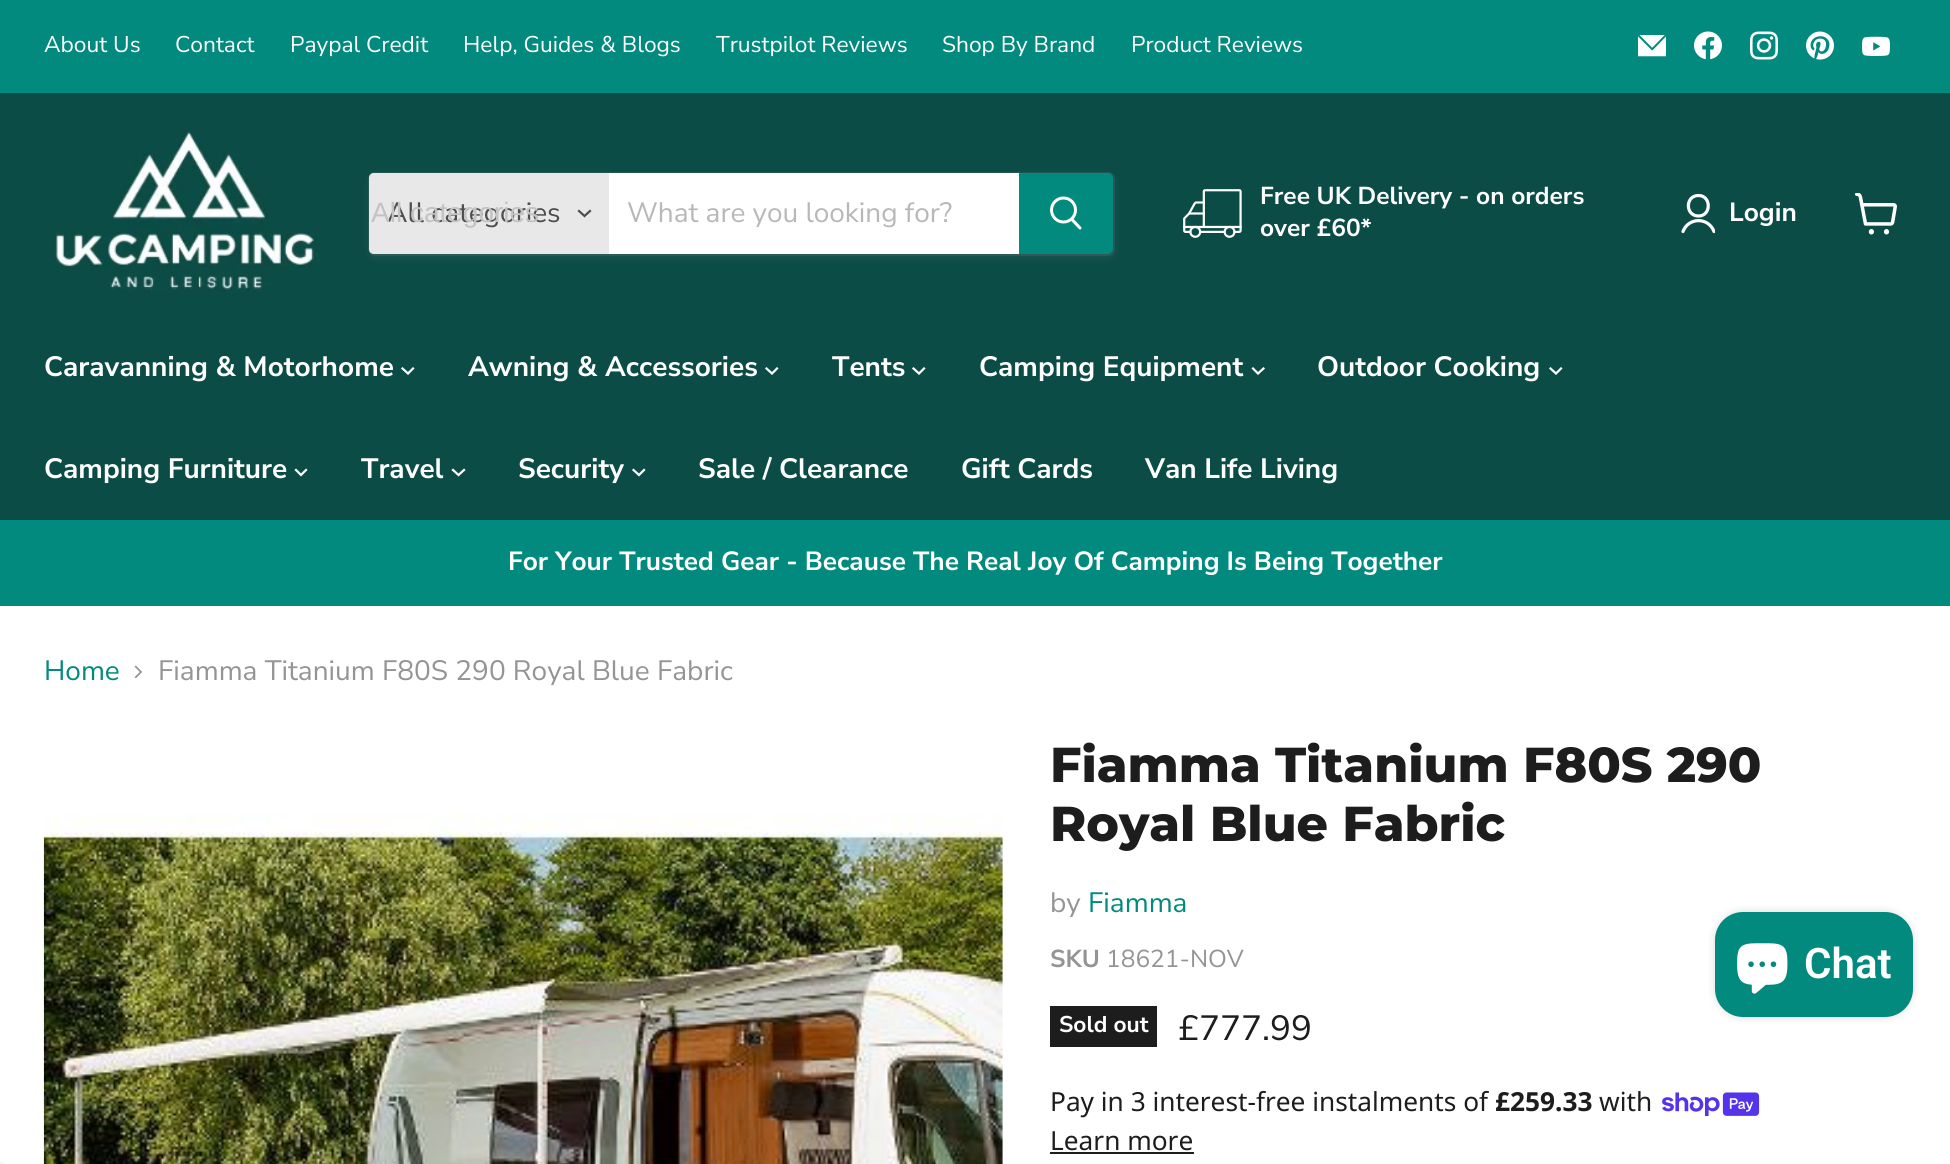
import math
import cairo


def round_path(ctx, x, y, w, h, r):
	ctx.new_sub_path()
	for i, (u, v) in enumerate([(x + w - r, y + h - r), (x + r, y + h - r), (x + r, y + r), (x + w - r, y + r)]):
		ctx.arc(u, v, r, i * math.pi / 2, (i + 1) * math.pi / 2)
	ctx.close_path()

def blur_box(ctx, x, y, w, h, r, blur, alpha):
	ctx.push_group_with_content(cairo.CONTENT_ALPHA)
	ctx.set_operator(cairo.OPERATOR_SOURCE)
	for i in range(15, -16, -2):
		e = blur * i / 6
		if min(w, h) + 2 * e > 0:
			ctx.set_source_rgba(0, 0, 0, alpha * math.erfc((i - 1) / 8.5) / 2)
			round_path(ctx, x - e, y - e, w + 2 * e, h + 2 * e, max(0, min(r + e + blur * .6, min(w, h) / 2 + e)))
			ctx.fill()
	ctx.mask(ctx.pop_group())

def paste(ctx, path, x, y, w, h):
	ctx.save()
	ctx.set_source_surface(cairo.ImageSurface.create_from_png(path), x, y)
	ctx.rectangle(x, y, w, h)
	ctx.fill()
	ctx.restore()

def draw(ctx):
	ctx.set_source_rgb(1, 1, 1)
	ctx.paint()
	ctx.set_source_rgb(0.008, 0.541, 0.494)
	ctx.rectangle(0, 0, 1950, 93)
	ctx.fill()
	ctx.select_font_face('Nunito Sans')
	ctx.set_font_size(22.75)
	ctx.set_source_rgb(1, 1, 1)
	for x, y, s in [
		(44, 52, 'About Us'),
		(175, 52, 'Contact'),
		(290, 52, 'Paypal Credit'),
		(463, 52, 'Help, Guides & Blogs'),
		(716, 52, 'Trustpilot Reviews'),
		(942, 52, 'Shop By Brand'),
		(1131, 52, 'Product Reviews'),
	]:
		ctx.move_to(x, y)
		ctx.show_text(s)
	paste(ctx, 'media/1.png', 1638, 35, 28, 22)
	paste(ctx, 'media/2.png', 1694, 31, 28, 29)
	paste(ctx, 'media/3.png', 1750, 31, 28, 29)
	paste(ctx, 'media/4.png', 1806, 31, 28, 29)
	paste(ctx, 'media/5.png', 1862, 36, 28, 20)
	ctx.set_source_rgb(0.047, 0.298, 0.278)
	ctx.rectangle(0, 93, 1950, 427)
	ctx.fill()
	paste(ctx, 'media/6.png', 53, 128, 267, 164)
	ctx.set_source_rgb(0.502, 0.502, 0.502)
	blur_box(ctx, 368, 175, 747, 84, 7, 2.5, 0.11)
	round_path(ctx, 369, 173, 745, 82, 6)
	ctx.set_source_rgba(0.502, 0.502, 0.502, 0.2)
	ctx.stroke()
	ctx.set_source_rgb(0.91, 0.91, 0.91)
	ctx.new_path()
	ctx.move_to(374, 173)
	ctx.line_to(609, 173)
	ctx.line_to(609, 254)
	ctx.line_to(374, 254)
	ctx.curve_to(371, 254, 369, 252, 369, 249)
	ctx.line_to(369, 178)
	ctx.curve_to(369, 175, 371, 173, 374, 173)
	ctx.close_path()
	ctx.fill()
	ctx.set_font_size(28)
	ctx.set_source_rgb(0.302, 0.302, 0.302)
	ctx.move_to(387, 222)
	ctx.show_text('All categories')
	ctx.select_font_face('Liberation Sans')
	ctx.set_source_rgb(0.765, 0.765, 0.765)
	ctx.move_to(371, 222)
	ctx.show_text('All categories')
	ctx.new_path()
	ctx.move_to(584.5, 216)
	ctx.line_to(590, 211)
	ctx.move_to(584.5, 216)
	ctx.line_to(579, 211)
	ctx.set_source_rgb(0.302, 0.302, 0.302)
	ctx.set_line_width(2.2)
	ctx.set_line_cap(cairo.LINE_CAP_SQUARE)
	ctx.stroke()
	ctx.set_source_rgb(1, 1, 1)
	ctx.rectangle(609, 173, 410, 81)
	ctx.fill()
	ctx.select_font_face('Nunito Sans')
	ctx.set_source_rgb(0.722, 0.722, 0.722)
	ctx.move_to(627, 222)
	ctx.show_text('What are you looking for?')
	ctx.set_source_rgb(0.008, 0.541, 0.494)
	ctx.new_path()
	ctx.move_to(1020, 174)
	ctx.line_to(1108, 174)
	ctx.curve_to(1110, 174, 1112, 176, 1112, 178)
	ctx.line_to(1112, 249)
	ctx.curve_to(1112, 251, 1110, 253, 1108, 253)
	ctx.line_to(1020, 253)
	ctx.close_path()
	ctx.fill_preserve()
	ctx.set_line_width(2)
	ctx.set_line_cap(cairo.LINE_CAP_BUTT)
	ctx.stroke()
	ctx.new_path()
	ctx.move_to(1080, 228)
	ctx.line_to(1072, 219.5)
	ctx.set_source_rgb(1, 1, 1)
	ctx.set_line_width(3)
	ctx.set_line_cap(cairo.LINE_CAP_ROUND)
	ctx.stroke()
	ctx.arc(1063.5, 210, 12, 0, 2 * math.pi)
	ctx.set_line_cap(cairo.LINE_CAP_BUTT)
	ctx.stroke()
	paste(ctx, 'media/7.png', 1183, 189, 59, 49)
	ctx.select_font_face('Nunito Sans', cairo.FONT_SLANT_NORMAL, cairo.FONT_WEIGHT_BOLD)
	ctx.set_font_size(24.5)
	ctx.move_to(1260, 204)
	ctx.show_text('Free UK Delivery - on orders')
	ctx.move_to(1260, 236)
	ctx.show_text('over £60*')
	ctx.new_path()
	ctx.move_to(1698.5, 216)
	ctx.curve_to(1711.5, 216, 1711.5, 195.5, 1698.5, 195.5)
	ctx.curve_to(1685, 195.5, 1685, 216, 1698.5, 216)
	ctx.close_path()
	ctx.set_line_width(3.2)
	ctx.set_line_cap(cairo.LINE_CAP_ROUND)
	ctx.set_line_join(cairo.LINE_JOIN_ROUND)
	ctx.stroke()
	ctx.save()
	ctx.rectangle(1680, 193, 35, 42)
	ctx.clip()
	ctx.new_path()
	ctx.move_to(1714, 231.5)
	ctx.curve_to(1708.5, 217, 1688.5, 217, 1683, 231.5)
	ctx.stroke()
	ctx.restore()
	ctx.set_font_size(26.25)
	ctx.move_to(1729, 221)
	ctx.show_text('Login')
	paste(ctx, 'media/8.png', 1855, 193, 42, 42)
	ctx.set_font_size(28)
	ctx.move_to(44, 376)
	ctx.show_text('Caravanning & Motorhome')
	ctx.new_path()
	ctx.move_to(408, 373.5)
	ctx.line_to(413, 368.5)
	ctx.move_to(408, 373.5)
	ctx.line_to(402.5, 368.5)
	ctx.set_line_width(2.2)
	ctx.set_line_cap(cairo.LINE_CAP_SQUARE)
	ctx.set_line_join(cairo.LINE_JOIN_MITER)
	ctx.stroke()
	ctx.move_to(468, 376)
	ctx.show_text('Awning & Accessories')
	ctx.new_path()
	ctx.move_to(772, 373.5)
	ctx.line_to(777, 368.5)
	ctx.move_to(772, 373.5)
	ctx.line_to(766.5, 368.5)
	ctx.stroke()
	ctx.move_to(832, 376)
	ctx.show_text('Tents')
	ctx.new_path()
	ctx.move_to(919, 373.5)
	ctx.line_to(924, 368.5)
	ctx.move_to(919, 373.5)
	ctx.line_to(913.5, 368.5)
	ctx.stroke()
	ctx.move_to(979, 376)
	ctx.show_text('Camping Equipment')
	ctx.new_path()
	ctx.move_to(1258, 373.5)
	ctx.line_to(1263.5, 368.5)
	ctx.move_to(1258, 373.5)
	ctx.line_to(1253, 368.5)
	ctx.stroke()
	ctx.move_to(1317, 376)
	ctx.show_text('Outdoor Cooking')
	ctx.new_path()
	ctx.move_to(1556, 373.5)
	ctx.line_to(1561, 368.5)
	ctx.move_to(1556, 373.5)
	ctx.line_to(1550.5, 368.5)
	ctx.stroke()
	ctx.move_to(44, 478)
	ctx.show_text('Camping Furniture')
	ctx.new_path()
	ctx.move_to(301, 475)
	ctx.line_to(306, 470)
	ctx.move_to(301, 475)
	ctx.line_to(296, 470)
	ctx.stroke()
	ctx.move_to(361, 478)
	ctx.show_text('Travel')
	ctx.new_path()
	ctx.move_to(458.5, 475)
	ctx.line_to(464, 470)
	ctx.move_to(458.5, 475)
	ctx.line_to(453, 470)
	ctx.stroke()
	ctx.move_to(518, 478)
	ctx.show_text('Security')
	ctx.new_path()
	ctx.move_to(639, 475)
	ctx.line_to(644, 470)
	ctx.move_to(639, 475)
	ctx.line_to(633.5, 470)
	ctx.stroke()
	for x, y, s in [
		(698, 478, 'Sale / Clearance'),
		(961, 478, 'Gift Cards'),
		(1145, 478, 'Van Life Living'),
	]:
		ctx.move_to(x, y)
		ctx.show_text(s)
	ctx.set_source_rgb(0.008, 0.541, 0.494)
	ctx.rectangle(0, 520, 1950, 86)
	ctx.fill()
	ctx.set_font_size(26.25)
	ctx.set_source_rgb(1, 1, 1)
	ctx.move_to(508, 570)
	ctx.show_text('For Your Trusted Gear - Because The Real Joy Of Camping Is Being Together')
	ctx.select_font_face('Nunito Sans')
	ctx.set_font_size(28)
	ctx.set_source_rgb(0.008, 0.541, 0.494)
	ctx.move_to(44, 680)
	ctx.show_text('Home')
	paste(ctx, 'media/9.png', 134, 665, 9, 14)
	ctx.set_source_rgb(0.58, 0.58, 0.58)
	ctx.move_to(158, 680)
	ctx.show_text('Fiamma Titanium F80S 290 Royal Blue Fabric')
	paste(ctx, 'media/10.png', 43, 813, 960, 351)
	ctx.select_font_face('Montserrat ExtraBold')
	ctx.set_font_size(49)
	ctx.set_source_rgb(0.114, 0.114, 0.114)
	ctx.move_to(1050, 782)
	ctx.show_text('Fiamma Titanium F80S 290')
	ctx.move_to(1050, 841)
	ctx.show_text('Royal Blue Fabric')
	ctx.select_font_face('Nunito Sans')
	ctx.set_font_size(28)
	ctx.set_source_rgb(0.58, 0.58, 0.58)
	ctx.move_to(1050, 912)
	ctx.show_text('by')
	ctx.set_source_rgb(0.008, 0.541, 0.494)
	ctx.move_to(1088, 912)
	ctx.show_text('Fiamma')
	ctx.select_font_face('Nunito Sans', cairo.FONT_SLANT_NORMAL, cairo.FONT_WEIGHT_BOLD)
	ctx.set_font_size(24.5)
	ctx.set_source_rgb(0.58, 0.58, 0.58)
	ctx.move_to(1050, 967)
	ctx.show_text('SKU')
	ctx.select_font_face('Nunito Sans')
	ctx.move_to(1106, 967)
	ctx.show_text('18621-NOV')
	ctx.set_source_rgb(0.114, 0.114, 0.114)
	ctx.rectangle(1050, 1006, 107, 41)
	ctx.fill()
	ctx.select_font_face('Nunito Sans', cairo.FONT_SLANT_NORMAL, cairo.FONT_WEIGHT_BOLD)
	ctx.set_font_size(22.75)
	ctx.set_source_rgb(1, 1, 1)
	ctx.move_to(1059, 1032)
	ctx.show_text('Sold out')
	ctx.select_font_face('Nunito Sans')
	ctx.set_font_size(35)
	ctx.set_source_rgb(0.114, 0.114, 0.114)
	ctx.move_to(1178, 1040)
	ctx.show_text('£777.99')
	ctx.select_font_face('Noto Sans')
	ctx.set_font_size(26.25)
	ctx.move_to(1050, 1111)
	ctx.show_text('Pay in 3 interest-free instalments of')
	ctx.select_font_face('Noto Sans', cairo.FONT_SLANT_NORMAL, cairo.FONT_WEIGHT_BOLD)
	ctx.move_to(1495, 1111)
	ctx.show_text('£259.33')
	ctx.select_font_face('Noto Sans')
	ctx.move_to(1599, 1111)
	ctx.show_text('with')
	paste(ctx, 'media/11.png', 1662, 1092, 98, 24)
	ctx.move_to(1050, 1150)
	ctx.show_text('Learn more')
	ctx.rectangle(1050, 1152, 144, 2)
	ctx.fill()
	ctx.set_source_rgb(0, 0, 0)
	blur_box(ctx, 1715, 912, 198, 105, 28, 4.5, 0.15)
	ctx.set_source_rgb(0.008, 0.541, 0.494)
	round_path(ctx, 1715, 912, 198, 105, 28)
	ctx.fill()
	paste(ctx, 'media/12.png', 1737, 943, 51, 51)
	ctx.select_font_face('Roboto SemiBold')
	ctx.set_font_size(42)
	ctx.set_source_rgb(1, 1, 1)
	ctx.move_to(1804, 978)
	ctx.show_text('Chat')
	ctx.set_source_rgb(0.961, 0.961, 0.961)
	ctx.rectangle(0, 1162, 4, 2)
	ctx.fill()


surface = cairo.ImageSurface(cairo.FORMAT_RGB24, 1950, 1164)
ctx = cairo.Context(surface)
options = cairo.FontOptions()
options.set_hint_metrics(cairo.HINT_METRICS_OFF)
options.set_hint_style(cairo.HINT_STYLE_NONE)
ctx.set_font_options(options)
ctx.set_miter_limit(4)
draw(ctx)
surface.write_to_png('image.png')
